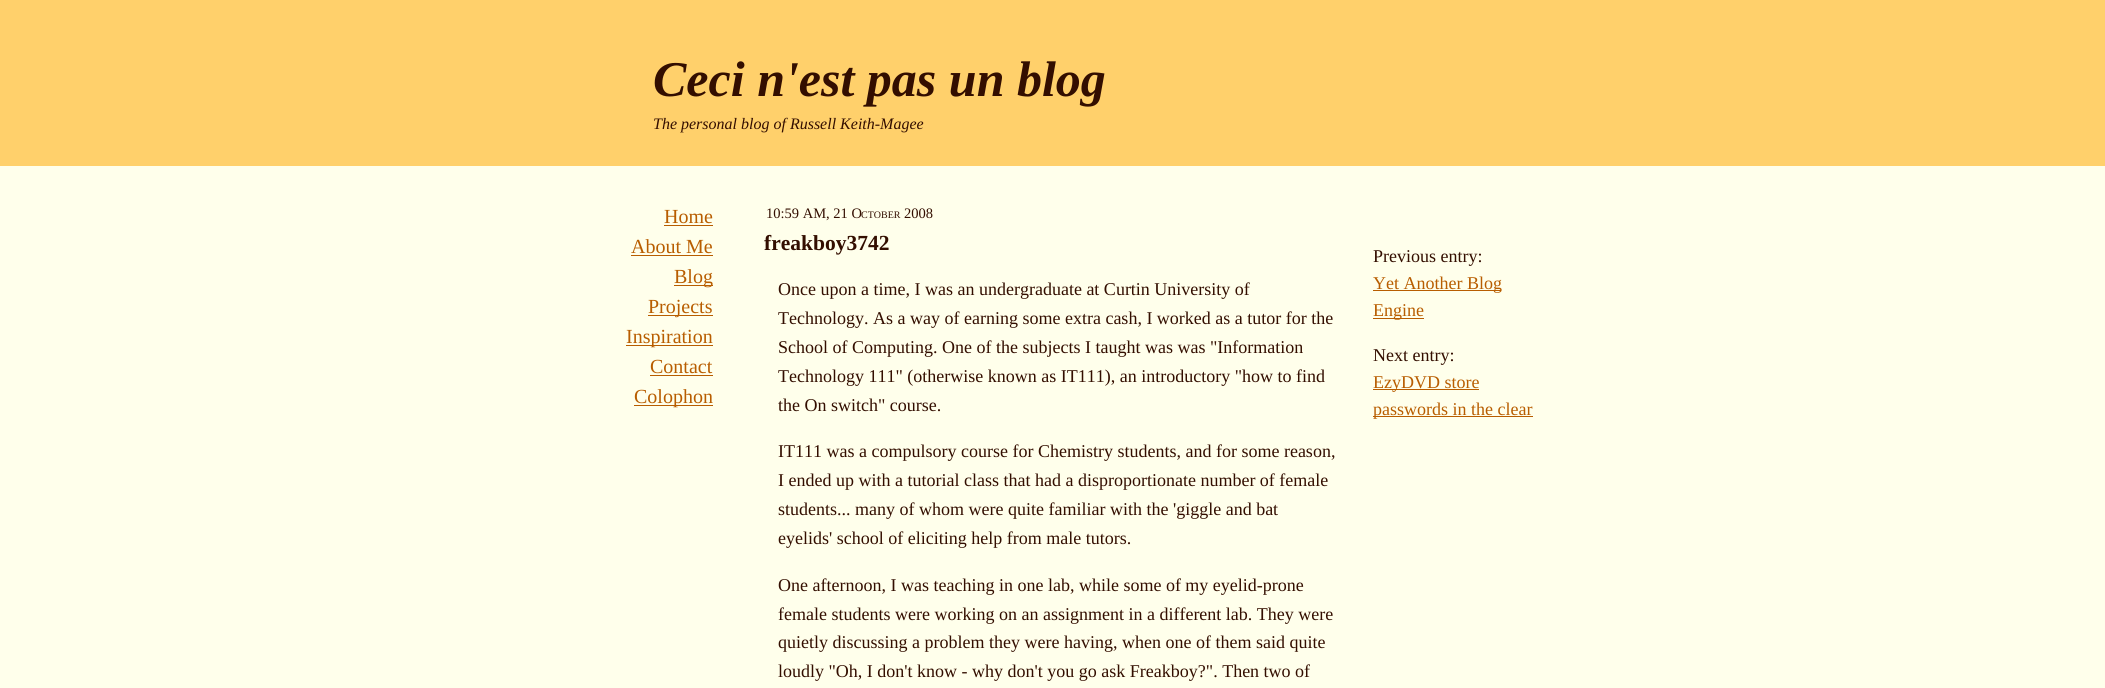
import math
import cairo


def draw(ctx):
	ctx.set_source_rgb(1, 1, 0.918)
	ctx.paint()
	ctx.set_source_rgb(1, 0.816, 0.42)
	ctx.rectangle(0, 0, 2105, 166)
	ctx.fill()
	ctx.select_font_face('Liberation Serif', cairo.FONT_SLANT_ITALIC, cairo.FONT_WEIGHT_BOLD)
	ctx.set_font_size(50)
	ctx.set_source_rgb(0.2, 0.055, 0)
	ctx.move_to(653, 96)
	ctx.show_text('Ceci n\'est pas un blog')
	ctx.select_font_face('Liberation Serif', cairo.FONT_SLANT_ITALIC)
	ctx.set_font_size(16)
	ctx.move_to(653, 129)
	ctx.show_text('The personal blog of Russell Keith-Magee')
	ctx.select_font_face('Liberation Serif')
	ctx.set_font_size(20)
	ctx.set_source_rgb(0.722, 0.365, 0)
	ctx.move_to(664, 223)
	ctx.show_text('Home')
	ctx.rectangle(664, 225, 49, 1)
	ctx.fill()
	ctx.move_to(631, 253)
	ctx.show_text('About Me')
	ctx.rectangle(631, 255, 82, 1)
	ctx.fill()
	ctx.rectangle(674, 285, 39, 1)
	ctx.fill()
	ctx.move_to(674, 283)
	ctx.show_text('Blog')
	ctx.rectangle(648, 315, 65, 1)
	ctx.fill()
	ctx.move_to(648, 313)
	ctx.show_text('Projects')
	ctx.rectangle(626, 345, 87, 1)
	ctx.fill()
	ctx.move_to(626, 343)
	ctx.show_text('Inspiration')
	ctx.move_to(650, 373)
	ctx.show_text('Contact')
	ctx.rectangle(650, 375, 63, 1)
	ctx.fill()
	ctx.rectangle(634, 405, 79, 1)
	ctx.fill()
	ctx.move_to(634, 403)
	ctx.show_text('Colophon')
	ctx.set_font_size(14.5)
	ctx.set_source_rgb(0.2, 0.055, 0)
	ctx.move_to(766, 218)
	ctx.show_text('10:59 AM, 21 O')
	ctx.set_font_size(10)
	ctx.move_to(861, 218)
	ctx.show_text('CTOBER')
	ctx.set_font_size(14.5)
	ctx.move_to(904, 218)
	ctx.show_text('2008')
	ctx.select_font_face('Liberation Serif', cairo.FONT_SLANT_NORMAL, cairo.FONT_WEIGHT_BOLD)
	ctx.set_font_size(21.5)
	ctx.move_to(764, 250)
	ctx.show_text('freakboy3742')
	ctx.select_font_face('Liberation Serif')
	ctx.set_font_size(18)
	for x, y, s in [
		(778, 295, 'Once upon a time, I was an undergraduate at Curtin University of'),
		(778, 324, 'Technology. As a way of earning some extra cash, I worked as a tutor for the'),
		(778, 353, 'School of Computing. One of the subjects I taught was was "Information'),
		(778, 382, 'Technology 111" (otherwise known as IT111), an introductory "how to find'),
		(778, 411, 'the On switch" course.'),
		(778, 457, 'IT111 was a compulsory course for Chemistry students, and for some reason,'),
		(778, 486, 'I ended up with a tutorial class that had a disproportionate number of female'),
		(778, 515, 'students... many of whom were quite familiar with the \'giggle and bat'),
		(778, 544, 'eyelids\' school of eliciting help from male tutors.'),
		(778, 591, 'One afternoon, I was teaching in one lab, while some of my eyelid-prone'),
		(778, 620, 'female students were working on an assignment in a different lab. They were'),
		(778, 648, 'quietly discussing a problem they were having, when one of them said quite'),
		(778, 677, 'loudly "Oh, I don\'t know - why don\'t you go ask Freakboy?". Then two of'),
		(1373, 262, 'Previous entry:'),
	]:
		ctx.move_to(x, y)
		ctx.show_text(s)
	ctx.set_source_rgb(0.722, 0.365, 0)
	ctx.rectangle(1373, 290, 128, 1)
	ctx.fill()
	ctx.move_to(1373, 289)
	ctx.show_text('Yet Another Blog')
	ctx.rectangle(1373, 318, 51, 1)
	ctx.fill()
	ctx.move_to(1373, 316)
	ctx.show_text('Engine')
	ctx.set_source_rgb(0.2, 0.055, 0)
	ctx.move_to(1373, 361)
	ctx.show_text('Next entry:')
	ctx.set_source_rgb(0.722, 0.365, 0)
	ctx.rectangle(1373, 389, 106, 1)
	ctx.fill()
	ctx.move_to(1373, 388)
	ctx.show_text('EzyDVD store')
	ctx.rectangle(1373, 416, 160, 1)
	ctx.fill()
	ctx.move_to(1373, 415)
	ctx.show_text('passwords in the clear')


surface = cairo.ImageSurface(cairo.FORMAT_RGB24, 2105, 688)
ctx = cairo.Context(surface)
options = cairo.FontOptions()
options.set_hint_metrics(cairo.HINT_METRICS_OFF)
options.set_hint_style(cairo.HINT_STYLE_NONE)
ctx.set_font_options(options)
ctx.set_miter_limit(4)
draw(ctx)
surface.write_to_png('image.png')
